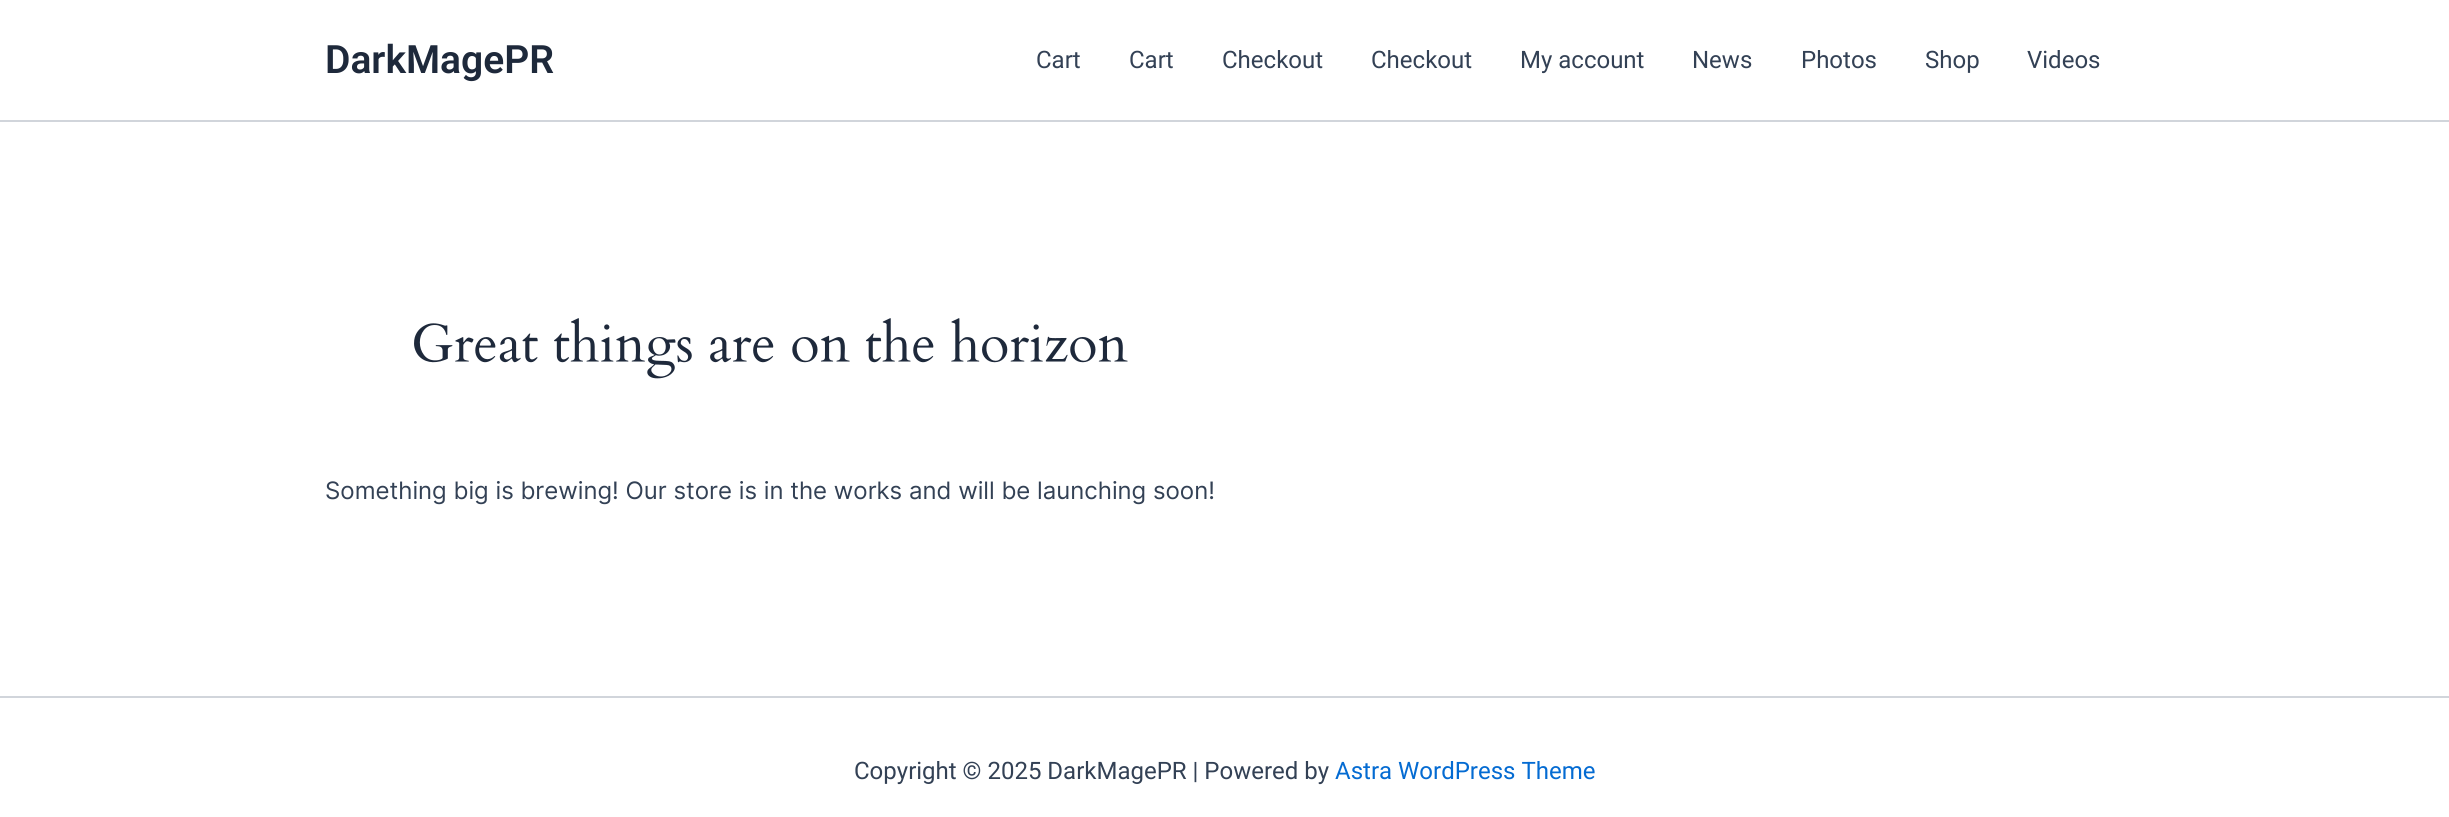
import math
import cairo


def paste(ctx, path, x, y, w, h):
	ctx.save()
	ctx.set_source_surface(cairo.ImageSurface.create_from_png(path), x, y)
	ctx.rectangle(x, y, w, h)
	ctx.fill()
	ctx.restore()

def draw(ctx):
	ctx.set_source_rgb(1, 1, 1)
	ctx.paint()
	ctx.set_source_rgb(0.82, 0.835, 0.859)
	ctx.rectangle(0, 120, 2449, 2)
	ctx.fill()
	ctx.select_font_face('Roboto SemiBold')
	ctx.set_font_size(39)
	ctx.set_source_rgb(0.118, 0.161, 0.231)
	ctx.move_to(325, 73)
	ctx.show_text('DarkMagePR')
	ctx.select_font_face('Roboto')
	ctx.set_font_size(24)
	ctx.set_source_rgb(0.2, 0.255, 0.333)
	for x, y, s in [
		(1036, 68, 'Cart'),
		(1129, 68, 'Cart'),
		(1222, 68, 'Checkout'),
		(1371, 68, 'Checkout'),
		(1520, 68, 'My account'),
		(1692, 68, 'News'),
		(1801, 68, 'Photos'),
		(1925, 68, 'Shop'),
		(2027, 68, 'Videos'),
	]:
		ctx.move_to(x, y)
		ctx.show_text(s)
	paste(ctx, 'media/1.png', 414, 318, 714, 61)
	ctx.select_font_face('Inter')
	ctx.move_to(325, 499)
	ctx.show_text('Something big is brewing! Our store is in the works and will be launching soon!')
	ctx.set_source_rgb(0.82, 0.835, 0.859)
	ctx.rectangle(0, 696, 2449, 2)
	ctx.fill()
	ctx.select_font_face('Roboto')
	ctx.set_source_rgb(0.2, 0.255, 0.333)
	ctx.move_to(854, 779)
	ctx.show_text('Copyright © 2025 DarkMagePR | Powered by')
	ctx.set_source_rgb(0.016, 0.42, 0.824)
	ctx.move_to(1335, 779)
	ctx.show_text('Astra WordPress Theme')


surface = cairo.ImageSurface(cairo.FORMAT_RGB24, 2449, 817)
ctx = cairo.Context(surface)
options = cairo.FontOptions()
options.set_hint_metrics(cairo.HINT_METRICS_OFF)
options.set_hint_style(cairo.HINT_STYLE_NONE)
ctx.set_font_options(options)
ctx.set_miter_limit(4)
draw(ctx)
surface.write_to_png('image.png')
